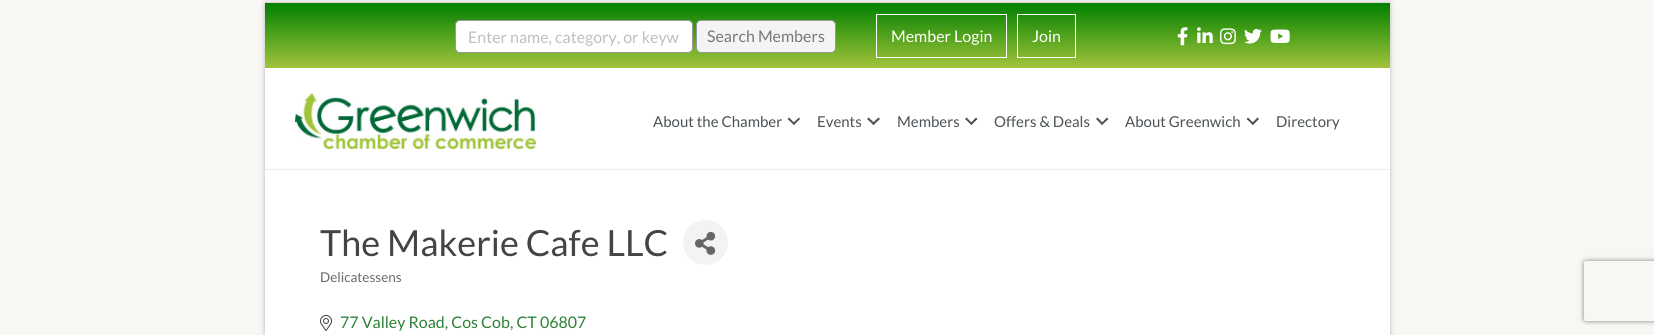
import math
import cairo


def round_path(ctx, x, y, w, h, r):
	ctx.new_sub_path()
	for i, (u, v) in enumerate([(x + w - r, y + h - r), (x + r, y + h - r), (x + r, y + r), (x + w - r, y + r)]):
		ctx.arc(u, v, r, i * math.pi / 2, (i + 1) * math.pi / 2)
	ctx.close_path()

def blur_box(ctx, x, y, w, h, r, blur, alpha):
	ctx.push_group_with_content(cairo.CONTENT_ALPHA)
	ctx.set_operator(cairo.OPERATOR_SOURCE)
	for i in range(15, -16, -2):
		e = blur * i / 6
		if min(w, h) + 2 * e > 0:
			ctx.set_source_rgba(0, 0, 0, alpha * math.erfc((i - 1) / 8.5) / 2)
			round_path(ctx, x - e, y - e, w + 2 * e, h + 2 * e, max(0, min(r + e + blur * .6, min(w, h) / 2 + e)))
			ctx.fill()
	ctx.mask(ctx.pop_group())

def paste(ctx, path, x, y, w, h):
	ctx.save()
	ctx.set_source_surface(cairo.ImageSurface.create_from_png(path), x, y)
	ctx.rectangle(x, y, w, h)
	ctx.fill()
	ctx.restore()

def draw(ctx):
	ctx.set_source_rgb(0.969, 0.965, 0.957)
	ctx.paint()
	ctx.set_source_rgb(0.718, 0.714, 0.71)
	blur_box(ctx, 265, 3, 1125, 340, 0, 2.5, 1)
	gradient = cairo.LinearGradient(828, 3, 828, 68)
	gradient.add_color_stop_rgba(0, 0, 0.502, 0, 1)
	gradient.add_color_stop_rgba(1, 0.635, 0.769, 0.231, 1)
	ctx.set_source(gradient)
	ctx.rectangle(265, 3, 1125, 65)
	ctx.fill()
	ctx.set_source_rgb(1, 1, 1)
	round_path(ctx, 455.5, 20.5, 237, 32, 4.5)
	ctx.fill_preserve()
	ctx.set_source_rgb(0.6, 0.6, 0.6)
	ctx.set_line_width(1)
	ctx.stroke()
	ctx.select_font_face('Lato')
	ctx.set_font_size(16)
	ctx.set_source_rgb(0.749, 0.749, 0.749)
	ctx.move_to(468, 43)
	ctx.show_text('Enter name, category, or keyw')
	ctx.set_source_rgb(0.957, 0.957, 0.957)
	round_path(ctx, 696.5, 20.5, 139, 32, 4.5)
	ctx.fill_preserve()
	ctx.set_source_rgb(0.6, 0.6, 0.6)
	ctx.stroke()
	ctx.set_source_rgb(0.467, 0.467, 0.467)
	ctx.move_to(707, 42)
	ctx.show_text('Search Members')
	ctx.rectangle(876.5, 14.5, 130, 43)
	ctx.set_source_rgb(1, 1, 1)
	ctx.stroke()
	ctx.move_to(891, 42)
	ctx.show_text('Member Login')
	ctx.rectangle(1017.5, 14.5, 58, 43)
	ctx.stroke()
	ctx.move_to(1032, 42)
	ctx.show_text('Join')
	paste(ctx, 'media/1.png', 1177, 27, 11, 19)
	paste(ctx, 'media/2.png', 1197, 27, 16, 16)
	paste(ctx, 'media/3.png', 1220, 28, 16, 17)
	paste(ctx, 'media/4.png', 1244, 28, 18, 16)
	paste(ctx, 'media/5.png', 1270, 29, 20, 14)
	ctx.rectangle(265, 68, 1125, 101)
	ctx.fill()
	ctx.set_source_rgb(0.925, 0.933, 0.922)
	ctx.rectangle(265, 169, 1125, 1)
	ctx.fill()
	paste(ctx, 'media/6.png', 295, 93, 241, 56)
	ctx.set_font_size(15)
	ctx.set_source_rgb(0.298, 0.322, 0.337)
	ctx.move_to(653, 127)
	ctx.show_text('About the Chamber')
	ctx.new_path()
	ctx.move_to(799, 117.5)
	ctx.line_to(800, 119)
	ctx.line_to(794, 125)
	ctx.line_to(792.5, 123.5)
	ctx.close_path()
	ctx.fill()
	ctx.new_path()
	ctx.move_to(789, 117.5)
	ctx.line_to(795, 123.5)
	ctx.line_to(794, 125)
	ctx.line_to(787.5, 119)
	ctx.close_path()
	ctx.fill()
	ctx.move_to(817, 127)
	ctx.show_text('Events')
	ctx.new_path()
	ctx.move_to(878.5, 117.5)
	ctx.line_to(880, 119)
	ctx.line_to(873.5, 125)
	ctx.line_to(872, 123.5)
	ctx.close_path()
	ctx.fill()
	ctx.new_path()
	ctx.move_to(868.5, 117.5)
	ctx.line_to(875, 123.5)
	ctx.line_to(873.5, 125)
	ctx.line_to(867, 119)
	ctx.close_path()
	ctx.fill()
	ctx.move_to(897, 127)
	ctx.show_text('Members')
	ctx.new_path()
	ctx.move_to(976, 117.5)
	ctx.line_to(977.5, 119)
	ctx.line_to(971.5, 125)
	ctx.line_to(970, 123.5)
	ctx.close_path()
	ctx.fill()
	ctx.new_path()
	ctx.move_to(966.5, 117.5)
	ctx.line_to(972.5, 123.5)
	ctx.line_to(971.5, 125)
	ctx.line_to(965, 119)
	ctx.close_path()
	ctx.fill()
	ctx.move_to(994, 127)
	ctx.show_text('Offers & Deals')
	ctx.new_path()
	ctx.move_to(1107, 117.5)
	ctx.line_to(1108.5, 119)
	ctx.line_to(1102, 125)
	ctx.line_to(1101, 123.5)
	ctx.close_path()
	ctx.fill()
	ctx.new_path()
	ctx.move_to(1097.5, 117.5)
	ctx.line_to(1103.5, 123.5)
	ctx.line_to(1102, 125)
	ctx.line_to(1096, 119)
	ctx.close_path()
	ctx.fill()
	ctx.move_to(1125, 127)
	ctx.show_text('About Greenwich')
	ctx.new_path()
	ctx.move_to(1257.5, 117.5)
	ctx.line_to(1259, 119)
	ctx.line_to(1253, 125)
	ctx.line_to(1251.5, 123.5)
	ctx.close_path()
	ctx.fill()
	ctx.new_path()
	ctx.move_to(1248, 117.5)
	ctx.line_to(1254, 123.5)
	ctx.line_to(1253, 125)
	ctx.line_to(1246.5, 119)
	ctx.close_path()
	ctx.fill()
	ctx.move_to(1276, 127)
	ctx.show_text('Directory')
	ctx.set_source_rgb(1, 1, 1)
	ctx.rectangle(265, 170, 1125, 165)
	ctx.fill()
	ctx.set_font_size(36)
	ctx.set_source_rgb(0.267, 0.267, 0.267)
	ctx.move_to(320, 256)
	ctx.show_text('The Makerie Cafe LLC')
	ctx.set_source_rgb(0.953, 0.953, 0.953)
	ctx.new_path()
	ctx.arc(705.5, 242.5, 22.5, 0, 2 * math.pi)
	ctx.fill()
	paste(ctx, 'media/7.png', 695, 231, 21, 24)
	ctx.set_font_size(13.5)
	ctx.set_source_rgb(0.412, 0.412, 0.412)
	ctx.move_to(320, 282)
	ctx.show_text('Delicatessens')
	paste(ctx, 'media/8.png', 320, 315, 12, 16)
	ctx.set_font_size(16)
	ctx.set_source_rgb(0.173, 0.51, 0.212)
	ctx.move_to(340, 328)
	ctx.show_text('77 Valley Road, Cos Cob, CT 06807')
	ctx.save()
	ctx.set_fill_rule(cairo.FILL_RULE_EVEN_ODD)
	ctx.new_path()
	ctx.move_to(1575, 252)
	ctx.line_to(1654, 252)
	ctx.line_to(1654, 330)
	ctx.line_to(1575, 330)
	ctx.close_path()
	ctx.move_to(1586, 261)
	ctx.line_to(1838, 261)
	ctx.curve_to(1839, 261, 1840, 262, 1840, 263)
	ctx.line_to(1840, 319)
	ctx.curve_to(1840, 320, 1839, 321, 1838, 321)
	ctx.line_to(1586, 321)
	ctx.curve_to(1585, 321, 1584, 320, 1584, 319)
	ctx.line_to(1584, 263)
	ctx.curve_to(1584, 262, 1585, 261, 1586, 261)
	ctx.close_path()
	ctx.clip()
	ctx.set_source_rgb(0.502, 0.502, 0.502)
	blur_box(ctx, 1584, 261, 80, 60, 2, 2.5, 1)
	ctx.restore()


surface = cairo.ImageSurface(cairo.FORMAT_RGB24, 1654, 335)
ctx = cairo.Context(surface)
options = cairo.FontOptions()
options.set_hint_metrics(cairo.HINT_METRICS_OFF)
options.set_hint_style(cairo.HINT_STYLE_NONE)
ctx.set_font_options(options)
ctx.set_miter_limit(4)
draw(ctx)
surface.write_to_png('image.png')
